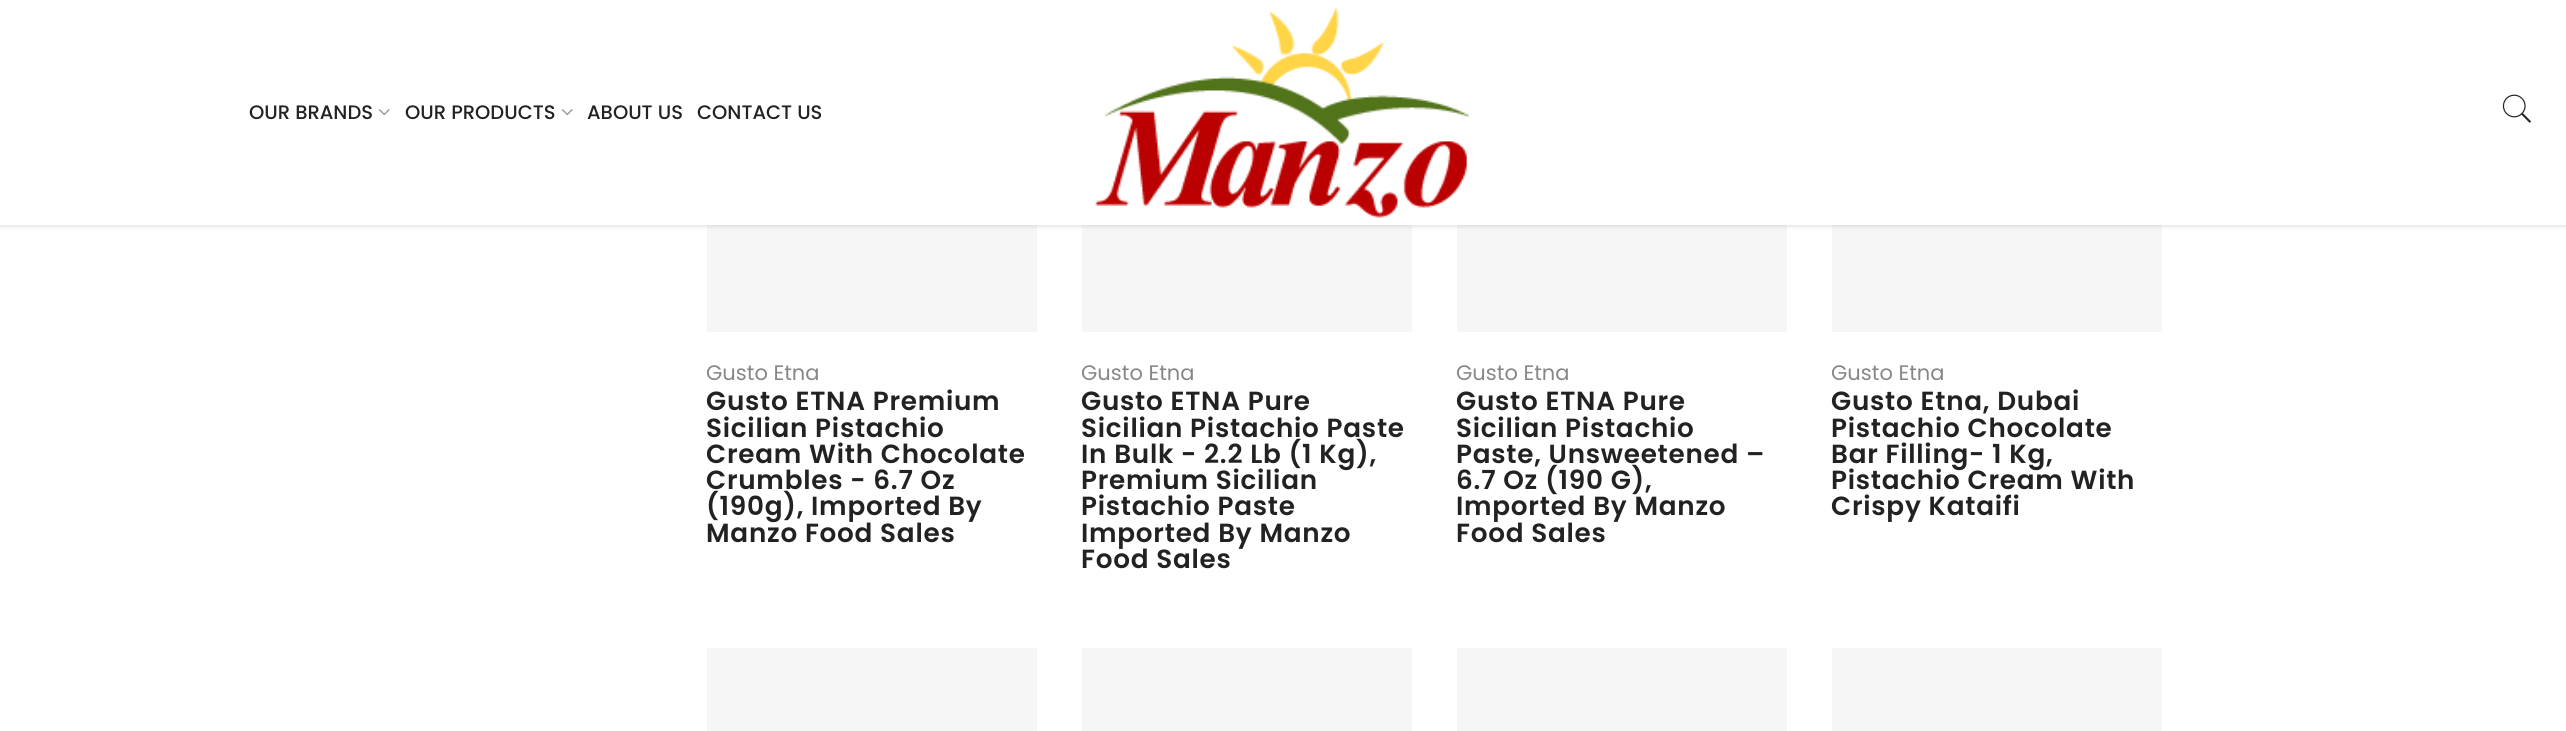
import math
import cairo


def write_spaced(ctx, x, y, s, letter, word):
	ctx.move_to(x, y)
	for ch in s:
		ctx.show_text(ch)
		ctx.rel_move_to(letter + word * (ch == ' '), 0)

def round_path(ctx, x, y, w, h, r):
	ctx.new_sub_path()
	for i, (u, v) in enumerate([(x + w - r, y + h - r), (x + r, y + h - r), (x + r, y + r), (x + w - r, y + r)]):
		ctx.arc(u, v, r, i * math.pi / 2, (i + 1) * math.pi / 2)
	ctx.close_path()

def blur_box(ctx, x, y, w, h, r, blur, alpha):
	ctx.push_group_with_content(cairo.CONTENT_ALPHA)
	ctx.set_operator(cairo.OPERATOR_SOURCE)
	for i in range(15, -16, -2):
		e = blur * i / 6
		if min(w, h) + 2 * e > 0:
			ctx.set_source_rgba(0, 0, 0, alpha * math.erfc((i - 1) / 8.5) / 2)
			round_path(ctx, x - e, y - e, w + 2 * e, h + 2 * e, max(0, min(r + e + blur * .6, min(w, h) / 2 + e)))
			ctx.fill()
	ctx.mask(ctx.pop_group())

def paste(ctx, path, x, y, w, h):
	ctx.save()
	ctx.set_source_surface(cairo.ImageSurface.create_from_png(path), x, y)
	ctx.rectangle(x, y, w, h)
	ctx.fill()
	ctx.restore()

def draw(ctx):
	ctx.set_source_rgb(1, 1, 1)
	ctx.paint()
	ctx.set_source_rgb(0.961, 0.961, 0.961)
	ctx.rectangle(707, 225, 330, 107)
	ctx.rectangle(1082, 225, 330, 107)
	ctx.rectangle(1457, 225, 330, 107)
	ctx.rectangle(1832, 225, 330, 107)
	ctx.fill()
	ctx.set_source_rgb(0, 0, 0)
	blur_box(ctx, 0, 2, 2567, 225, 0, 2, 0.1)
	ctx.set_source_rgb(1, 1, 1)
	ctx.rectangle(0, 0, 2566, 225)
	ctx.fill()
	ctx.select_font_face('Poppins Medium')
	ctx.set_font_size(19.5)
	ctx.set_source_rgb(0.133, 0.133, 0.133)
	ctx.move_to(249, 119)
	ctx.show_text('OUR BRANDS')
	paste(ctx, 'media/1.png', 379, 109, 11, 7)
	ctx.move_to(405, 119)
	ctx.show_text('OUR PRODUCTS')
	paste(ctx, 'media/1.png', 562, 109, 11, 7)
	ctx.move_to(587, 119)
	ctx.show_text('ABOUT US')
	ctx.move_to(697, 119)
	ctx.show_text('CONTACT US')
	paste(ctx, 'media/2.png', 1095, 7, 375, 211)
	paste(ctx, 'media/3.png', 2502, 94, 29, 29)
	ctx.select_font_face('Poppins')
	ctx.set_font_size(21)
	ctx.set_source_rgb(0.529, 0.529, 0.529)
	ctx.move_to(706, 380)
	ctx.show_text('Gusto Etna')
	ctx.select_font_face('Poppins SemiBold')
	ctx.set_font_size(26.25)
	ctx.set_source_rgb(0.133, 0.133, 0.133)
	for x, y, s in [
		(706, 410, 'Gusto ETNA Premium'),
		(706, 437, 'Sicilian Pistachio'),
		(706, 463, 'Cream With Chocolate'),
		(706, 489, 'Crumbles - 6.7 Oz'),
		(706, 515, '(190g), Imported By'),
		(706, 542, 'Manzo Food Sales'),
	]:
		write_spaced(ctx, x, y, s, 0.75, 0)
	ctx.select_font_face('Poppins')
	ctx.set_font_size(21)
	ctx.set_source_rgb(0.529, 0.529, 0.529)
	ctx.move_to(1081, 380)
	ctx.show_text('Gusto Etna')
	ctx.select_font_face('Poppins SemiBold')
	ctx.set_font_size(26.25)
	ctx.set_source_rgb(0.133, 0.133, 0.133)
	for x, y, s in [
		(1081, 410, 'Gusto ETNA Pure'),
		(1081, 437, 'Sicilian Pistachio Paste'),
		(1081, 463, 'In Bulk - 2.2 Lb (1 Kg),'),
		(1081, 489, 'Premium Sicilian'),
		(1081, 515, 'Pistachio Paste'),
		(1081, 542, 'Imported By Manzo'),
		(1081, 568, 'Food Sales'),
	]:
		write_spaced(ctx, x, y, s, 0.75, 0)
	ctx.select_font_face('Poppins')
	ctx.set_font_size(21)
	ctx.set_source_rgb(0.529, 0.529, 0.529)
	ctx.move_to(1456, 380)
	ctx.show_text('Gusto Etna')
	ctx.select_font_face('Poppins SemiBold')
	ctx.set_font_size(26.25)
	ctx.set_source_rgb(0.133, 0.133, 0.133)
	for x, y, s in [
		(1456, 410, 'Gusto ETNA Pure'),
		(1456, 437, 'Sicilian Pistachio'),
		(1456, 463, 'Paste, Unsweetened –'),
		(1456, 489, '6.7 Oz (190 G),'),
		(1456, 515, 'Imported By Manzo'),
		(1456, 542, 'Food Sales'),
	]:
		write_spaced(ctx, x, y, s, 0.75, 0)
	ctx.select_font_face('Poppins')
	ctx.set_font_size(21)
	ctx.set_source_rgb(0.529, 0.529, 0.529)
	ctx.move_to(1831, 380)
	ctx.show_text('Gusto Etna')
	ctx.select_font_face('Poppins SemiBold')
	ctx.set_font_size(26.25)
	ctx.set_source_rgb(0.133, 0.133, 0.133)
	for x, y, s in [
		(1831, 410, 'Gusto Etna, Dubai'),
		(1831, 437, 'Pistachio Chocolate'),
		(1831, 463, 'Bar Filling- 1 Kg,'),
		(1831, 489, 'Pistachio Cream With'),
		(1831, 515, 'Crispy Kataifi'),
	]:
		write_spaced(ctx, x, y, s, 0.75, 0)
	ctx.set_source_rgb(0.961, 0.961, 0.961)
	ctx.rectangle(707, 648, 330, 83)
	ctx.rectangle(1082, 648, 330, 83)
	ctx.rectangle(1457, 648, 330, 83)
	ctx.rectangle(1832, 648, 330, 83)
	ctx.fill()


surface = cairo.ImageSurface(cairo.FORMAT_RGB24, 2566, 731)
ctx = cairo.Context(surface)
options = cairo.FontOptions()
options.set_hint_metrics(cairo.HINT_METRICS_OFF)
options.set_hint_style(cairo.HINT_STYLE_NONE)
ctx.set_font_options(options)
ctx.set_miter_limit(4)
draw(ctx)
surface.write_to_png('image.png')
